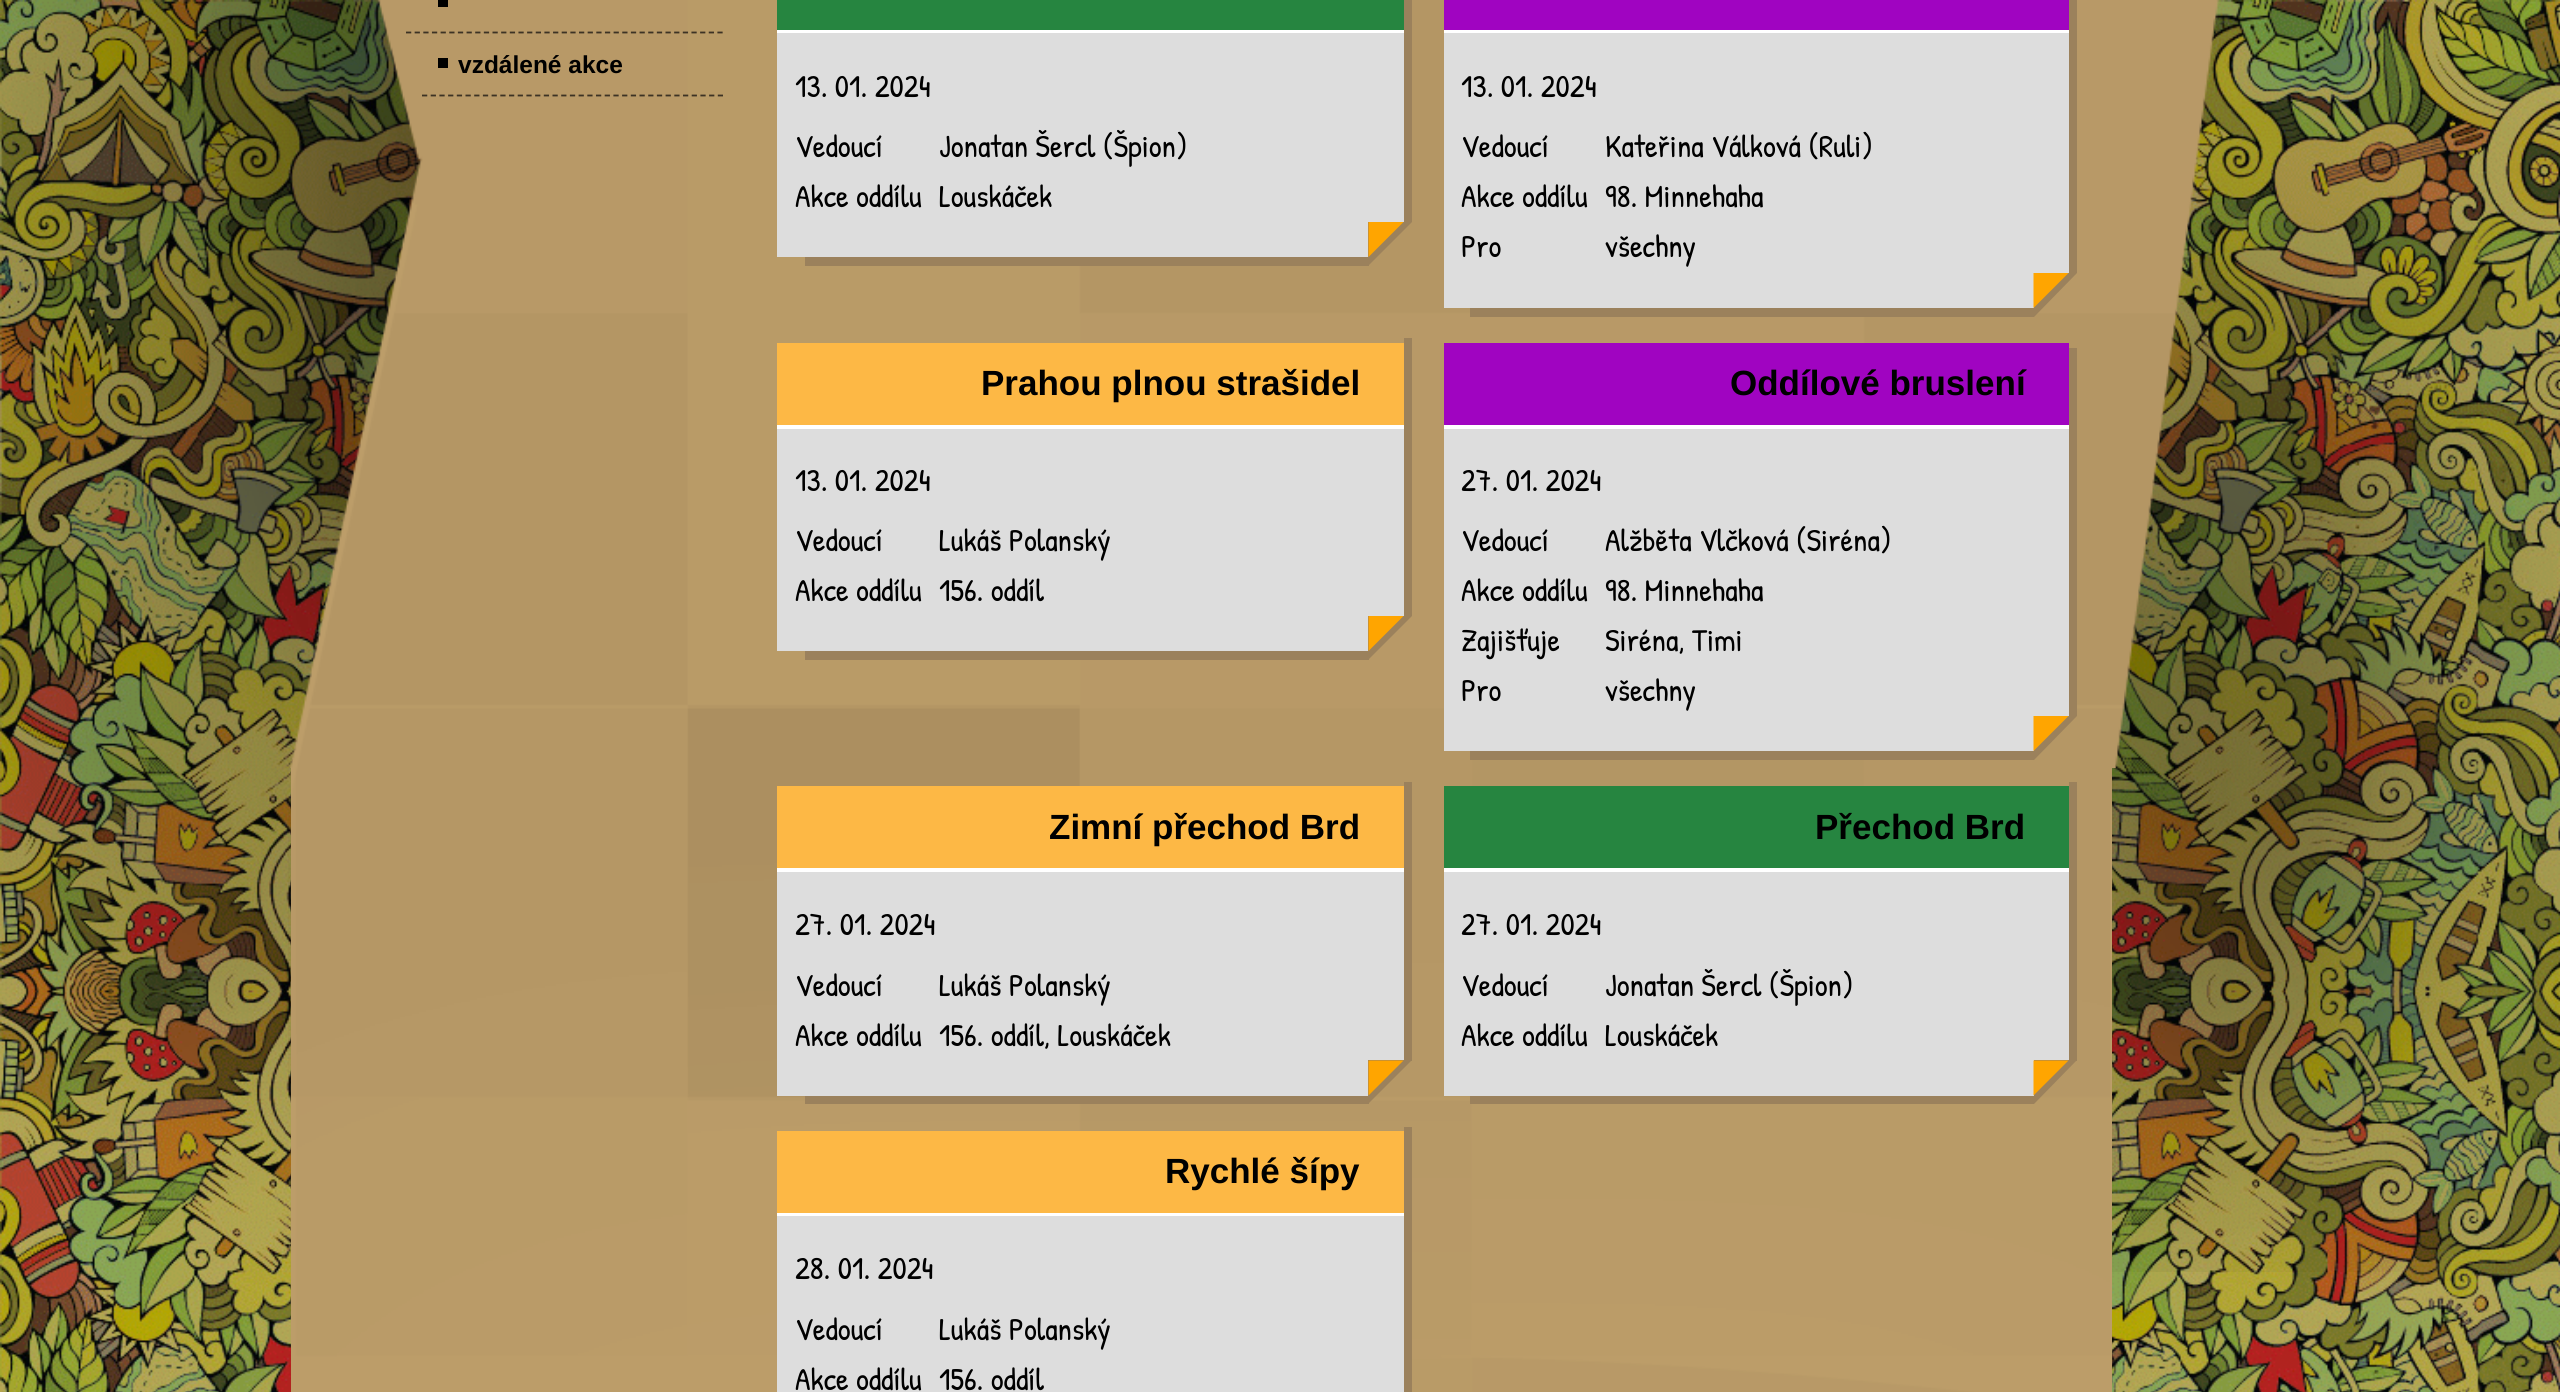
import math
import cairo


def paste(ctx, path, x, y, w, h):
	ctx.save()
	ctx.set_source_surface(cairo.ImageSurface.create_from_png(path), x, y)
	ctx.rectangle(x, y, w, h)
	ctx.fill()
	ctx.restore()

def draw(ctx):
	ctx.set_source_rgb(1, 1, 1)
	ctx.paint()
	paste(ctx, 'media/1.png', 0, 0, 2560, 1392)
	paste(ctx, 'media/2.png', 0, 0, 2560, 1272)
	paste(ctx, 'media/3.png', 290, 0, 1930, 768)
	ctx.set_source_rgb(0.737, 0.616, 0.412)
	ctx.rectangle(291, 768, 1821, 624)
	ctx.fill()
	paste(ctx, 'media/4.png', 288, 0, 1929, 1392)
	ctx.new_path()
	ctx.move_to(406, 32.5)
	ctx.line_to(723, 32.5)
	ctx.set_source_rgb(0.235, 0.196, 0.141)
	ctx.set_line_width(1.8)
	ctx.set_dash([5.25, 3.4])
	ctx.stroke()
	ctx.set_source_rgb(0, 0, 0)
	ctx.rectangle(438, 0, 10, 7)
	ctx.fill()
	ctx.new_path()
	ctx.move_to(422, 95.5)
	ctx.line_to(723, 95.5)
	ctx.set_source_rgb(0.235, 0.196, 0.141)
	ctx.set_dash([5.25, 3.45])
	ctx.stroke()
	ctx.set_source_rgb(0, 0, 0)
	ctx.rectangle(438, 58, 10, 10)
	ctx.fill()
	ctx.select_font_face('Liberation Sans', cairo.FONT_SLANT_NORMAL, cairo.FONT_WEIGHT_BOLD)
	ctx.set_font_size(24.5)
	ctx.move_to(458, 73)
	ctx.show_text('vzdálené akce')
	ctx.set_source_rgb(0.149, 0.522, 0.251)
	ctx.rectangle(777, 0, 627, 30)
	ctx.fill()
	ctx.set_source_rgb(1, 1, 1)
	ctx.rectangle(777, 30, 627, 3)
	ctx.fill()
	ctx.set_source_rgb(0.608, 0.506, 0.361)
	ctx.rectangle(1404, 0, 8, 222)
	ctx.fill()
	ctx.set_source_rgb(0.867, 0.867, 0.867)
	ctx.rectangle(777, 33, 627, 189)
	ctx.fill()
	ctx.select_font_face('Patrick Hand')
	ctx.set_font_size(31.75)
	ctx.set_source_rgb(0, 0, 0)
	for x, y, s in [
		(795, 97, '13. 01. 2024'),
		(795, 157, 'Vedoucí'),
		(939, 157, 'Jonatan Šercl (Špion)'),
		(795, 207, 'Akce oddílu'),
		(939, 207, 'Louskáček'),
	]:
		ctx.move_to(x, y)
		ctx.show_text(s)
	ctx.set_source_rgb(0.608, 0.506, 0.361)
	ctx.new_path()
	ctx.move_to(1368, 266)
	ctx.line_to(1368, 222)
	ctx.line_to(1412, 222)
	ctx.close_path()
	ctx.fill()
	ctx.set_source_rgb(1, 0.647, 0)
	ctx.new_path()
	ctx.move_to(1368.5, 257)
	ctx.line_to(1368.5, 222)
	ctx.line_to(1403.5, 222)
	ctx.close_path()
	ctx.fill()
	ctx.set_source_rgb(0.867, 0.867, 0.867)
	ctx.rectangle(777, 222, 591, 35)
	ctx.fill()
	ctx.set_source_rgb(0.608, 0.506, 0.361)
	ctx.rectangle(805, 257, 564, 9)
	ctx.fill()
	ctx.set_source_rgb(0.627, 0.016, 0.757)
	ctx.rectangle(1444, 0, 625, 30)
	ctx.fill()
	ctx.set_source_rgb(1, 1, 1)
	ctx.rectangle(1444, 30, 625, 3)
	ctx.fill()
	ctx.set_source_rgb(0.608, 0.506, 0.361)
	ctx.rectangle(2069, 0, 8, 273)
	ctx.fill()
	ctx.set_source_rgb(0.867, 0.867, 0.867)
	ctx.rectangle(1444, 33, 625, 240)
	ctx.fill()
	ctx.set_source_rgb(0, 0, 0)
	for x, y, s in [
		(1461, 97, '13. 01. 2024'),
		(1461, 157, 'Vedoucí'),
		(1605, 157, 'Kateřina Válková (Ruli)'),
		(1461, 207, 'Akce oddílu'),
		(1605, 207, '98. Minnehaha'),
		(1461, 257, 'Pro'),
		(1605, 257, 'všechny'),
	]:
		ctx.move_to(x, y)
		ctx.show_text(s)
	ctx.set_source_rgb(0.608, 0.506, 0.361)
	ctx.new_path()
	ctx.move_to(2034, 317)
	ctx.line_to(2034, 273)
	ctx.line_to(2077, 273)
	ctx.close_path()
	ctx.fill()
	ctx.set_source_rgb(0.867, 0.867, 0.867)
	ctx.rectangle(1444, 273, 590, 35)
	ctx.fill()
	ctx.set_source_rgb(1, 0.647, 0)
	ctx.new_path()
	ctx.move_to(2033.5, 308)
	ctx.line_to(2033.5, 273)
	ctx.line_to(2068.5, 273)
	ctx.close_path()
	ctx.fill()
	ctx.set_source_rgb(0.608, 0.506, 0.361)
	ctx.rectangle(1470, 308, 564, 9)
	ctx.fill()
	ctx.set_source_rgb(0.992, 0.722, 0.271)
	ctx.rectangle(777, 343, 627, 82)
	ctx.fill()
	ctx.set_source_rgb(1, 1, 1)
	ctx.rectangle(777, 425, 627, 4)
	ctx.fill()
	ctx.select_font_face('Liberation Sans', cairo.FONT_SLANT_NORMAL, cairo.FONT_WEIGHT_BOLD)
	ctx.set_font_size(35)
	ctx.set_source_rgb(0, 0, 0)
	ctx.move_to(981, 395)
	ctx.show_text('Prahou plnou strašidel')
	ctx.set_source_rgb(0.608, 0.506, 0.361)
	ctx.rectangle(1404, 338, 8, 278)
	ctx.fill()
	ctx.set_source_rgb(0.867, 0.867, 0.867)
	ctx.rectangle(777, 429, 627, 187)
	ctx.fill()
	ctx.select_font_face('Patrick Hand')
	ctx.set_font_size(31.75)
	ctx.set_source_rgb(0, 0, 0)
	for x, y, s in [
		(795, 491, '13. 01. 2024'),
		(795, 551, 'Vedoucí'),
		(939, 551, 'Lukáš Polanský'),
		(795, 601, 'Akce oddílu'),
		(939, 601, '156. oddíl'),
	]:
		ctx.move_to(x, y)
		ctx.show_text(s)
	ctx.set_source_rgb(0.608, 0.506, 0.361)
	ctx.new_path()
	ctx.move_to(1368, 660)
	ctx.line_to(1368, 616)
	ctx.line_to(1412, 616)
	ctx.close_path()
	ctx.fill()
	ctx.set_source_rgb(1, 0.647, 0)
	ctx.new_path()
	ctx.move_to(1368.5, 651)
	ctx.line_to(1368.5, 616)
	ctx.line_to(1403.5, 616)
	ctx.close_path()
	ctx.fill()
	ctx.set_source_rgb(0.867, 0.867, 0.867)
	ctx.rectangle(777, 616, 591, 35)
	ctx.fill()
	ctx.set_source_rgb(0.608, 0.506, 0.361)
	ctx.rectangle(805, 651, 564, 9)
	ctx.fill()
	ctx.set_source_rgb(0.627, 0.016, 0.757)
	ctx.rectangle(1444, 343, 625, 82)
	ctx.fill()
	ctx.set_source_rgb(1, 1, 1)
	ctx.rectangle(1444, 425, 625, 4)
	ctx.fill()
	ctx.select_font_face('Liberation Sans', cairo.FONT_SLANT_NORMAL, cairo.FONT_WEIGHT_BOLD)
	ctx.set_font_size(35)
	ctx.set_source_rgb(0, 0, 0)
	ctx.move_to(1730, 395)
	ctx.show_text('Oddílové bruslení')
	ctx.set_source_rgb(0.608, 0.506, 0.361)
	ctx.rectangle(2069, 348, 8, 368)
	ctx.fill()
	ctx.set_source_rgb(0.867, 0.867, 0.867)
	ctx.rectangle(1444, 429, 625, 287)
	ctx.fill()
	ctx.select_font_face('Patrick Hand')
	ctx.set_font_size(31.75)
	ctx.set_source_rgb(0, 0, 0)
	for x, y, s in [
		(1461, 491, '27. 01. 2024'),
		(1461, 551, 'Vedoucí'),
		(1605, 551, 'Alžběta Vlčková (Siréna)'),
		(1461, 601, 'Akce oddílu'),
		(1605, 601, '98. Minnehaha'),
		(1461, 651, 'Zajišťuje'),
		(1605, 651, 'Siréna, Timi'),
		(1461, 701, 'Pro'),
		(1605, 701, 'všechny'),
	]:
		ctx.move_to(x, y)
		ctx.show_text(s)
	ctx.set_source_rgb(0.608, 0.506, 0.361)
	ctx.new_path()
	ctx.move_to(2034, 760)
	ctx.line_to(2034, 716)
	ctx.line_to(2077, 716)
	ctx.close_path()
	ctx.fill()
	ctx.set_source_rgb(0.867, 0.867, 0.867)
	ctx.rectangle(1444, 716, 590, 35)
	ctx.fill()
	ctx.set_source_rgb(1, 0.647, 0)
	ctx.new_path()
	ctx.move_to(2033.5, 751)
	ctx.line_to(2033.5, 716)
	ctx.line_to(2068.5, 716)
	ctx.close_path()
	ctx.fill()
	ctx.set_source_rgb(0.608, 0.506, 0.361)
	ctx.rectangle(1470, 751, 564, 9)
	ctx.fill()
	ctx.set_source_rgb(0.992, 0.722, 0.271)
	ctx.rectangle(777, 786, 627, 82)
	ctx.fill()
	ctx.set_source_rgb(1, 1, 1)
	ctx.rectangle(777, 868, 627, 4)
	ctx.fill()
	ctx.select_font_face('Liberation Sans', cairo.FONT_SLANT_NORMAL, cairo.FONT_WEIGHT_BOLD)
	ctx.set_font_size(35)
	ctx.set_source_rgb(0, 0, 0)
	ctx.move_to(1049, 839)
	ctx.show_text('Zimní přechod Brd')
	ctx.set_source_rgb(0.608, 0.506, 0.361)
	ctx.rectangle(1404, 782, 8, 279)
	ctx.fill()
	ctx.set_source_rgb(0.867, 0.867, 0.867)
	ctx.rectangle(777, 872, 627, 189)
	ctx.fill()
	ctx.select_font_face('Patrick Hand')
	ctx.set_font_size(31.75)
	ctx.set_source_rgb(0, 0, 0)
	for x, y, s in [
		(795, 935, '27. 01. 2024'),
		(795, 996, 'Vedoucí'),
		(939, 996, 'Lukáš Polanský'),
		(795, 1046, 'Akce oddílu'),
		(939, 1046, '156. oddíl, Louskáček'),
	]:
		ctx.move_to(x, y)
		ctx.show_text(s)
	ctx.set_source_rgb(0.608, 0.506, 0.361)
	ctx.new_path()
	ctx.move_to(1368, 1104)
	ctx.line_to(1368, 1060)
	ctx.line_to(1412, 1060)
	ctx.close_path()
	ctx.fill()
	ctx.set_source_rgb(1, 0.647, 0)
	ctx.new_path()
	ctx.move_to(1368.5, 1095.5)
	ctx.line_to(1368.5, 1060.5)
	ctx.line_to(1403.5, 1060.5)
	ctx.close_path()
	ctx.fill()
	ctx.set_source_rgb(0.867, 0.867, 0.867)
	ctx.rectangle(777, 1061, 591, 35)
	ctx.fill()
	ctx.set_source_rgb(0.608, 0.506, 0.361)
	ctx.rectangle(805, 1096, 564, 8)
	ctx.fill()
	ctx.set_source_rgb(0.149, 0.522, 0.251)
	ctx.rectangle(1444, 786, 625, 82)
	ctx.fill()
	ctx.set_source_rgb(1, 1, 1)
	ctx.rectangle(1444, 868, 625, 4)
	ctx.fill()
	ctx.select_font_face('Liberation Sans', cairo.FONT_SLANT_NORMAL, cairo.FONT_WEIGHT_BOLD)
	ctx.set_font_size(35)
	ctx.set_source_rgb(0, 0, 0)
	ctx.move_to(1815, 839)
	ctx.show_text('Přechod Brd')
	ctx.set_source_rgb(0.608, 0.506, 0.361)
	ctx.rectangle(2069, 782, 8, 279)
	ctx.fill()
	ctx.set_source_rgb(0.867, 0.867, 0.867)
	ctx.rectangle(1444, 872, 625, 189)
	ctx.fill()
	ctx.select_font_face('Patrick Hand')
	ctx.set_font_size(31.75)
	ctx.set_source_rgb(0, 0, 0)
	for x, y, s in [
		(1461, 935, '27. 01. 2024'),
		(1461, 996, 'Vedoucí'),
		(1605, 996, 'Jonatan Šercl (Špion)'),
		(1461, 1046, 'Akce oddílu'),
		(1605, 1046, 'Louskáček'),
	]:
		ctx.move_to(x, y)
		ctx.show_text(s)
	ctx.set_source_rgb(0.608, 0.506, 0.361)
	ctx.new_path()
	ctx.move_to(2034, 1104)
	ctx.line_to(2034, 1060)
	ctx.line_to(2077, 1060)
	ctx.close_path()
	ctx.fill()
	ctx.set_source_rgb(0.867, 0.867, 0.867)
	ctx.rectangle(1444, 1061, 590, 35)
	ctx.fill()
	ctx.set_source_rgb(1, 0.647, 0)
	ctx.new_path()
	ctx.move_to(2033.5, 1095.5)
	ctx.line_to(2033.5, 1060.5)
	ctx.line_to(2068.5, 1060.5)
	ctx.close_path()
	ctx.fill()
	ctx.set_source_rgb(0.608, 0.506, 0.361)
	ctx.rectangle(1470, 1096, 564, 8)
	ctx.fill()
	ctx.set_source_rgb(0.992, 0.722, 0.271)
	ctx.rectangle(777, 1131, 627, 82)
	ctx.fill()
	ctx.set_source_rgb(1, 1, 1)
	ctx.rectangle(777, 1213, 627, 3)
	ctx.fill()
	ctx.select_font_face('Liberation Sans', cairo.FONT_SLANT_NORMAL, cairo.FONT_WEIGHT_BOLD)
	ctx.set_font_size(35)
	ctx.set_source_rgb(0, 0, 0)
	ctx.move_to(1165, 1183)
	ctx.show_text('Rychlé šípy')
	ctx.set_source_rgb(0.608, 0.506, 0.361)
	ctx.rectangle(1404, 1127, 8, 265)
	ctx.fill()
	ctx.set_source_rgb(0.867, 0.867, 0.867)
	ctx.rectangle(777, 1216, 627, 176)
	ctx.fill()
	ctx.select_font_face('Patrick Hand')
	ctx.set_font_size(31.75)
	ctx.set_source_rgb(0, 0, 0)
	for x, y, s in [
		(795, 1279, '28. 01. 2024'),
		(795, 1340, 'Vedoucí'),
		(939, 1340, 'Lukáš Polanský'),
		(795, 1390, 'Akce oddílu'),
		(939, 1390, '156. oddíl'),
	]:
		ctx.move_to(x, y)
		ctx.show_text(s)


surface = cairo.ImageSurface(cairo.FORMAT_RGB24, 2560, 1392)
ctx = cairo.Context(surface)
options = cairo.FontOptions()
options.set_hint_metrics(cairo.HINT_METRICS_OFF)
options.set_hint_style(cairo.HINT_STYLE_NONE)
ctx.set_font_options(options)
ctx.set_miter_limit(4)
draw(ctx)
surface.write_to_png('image.png')
